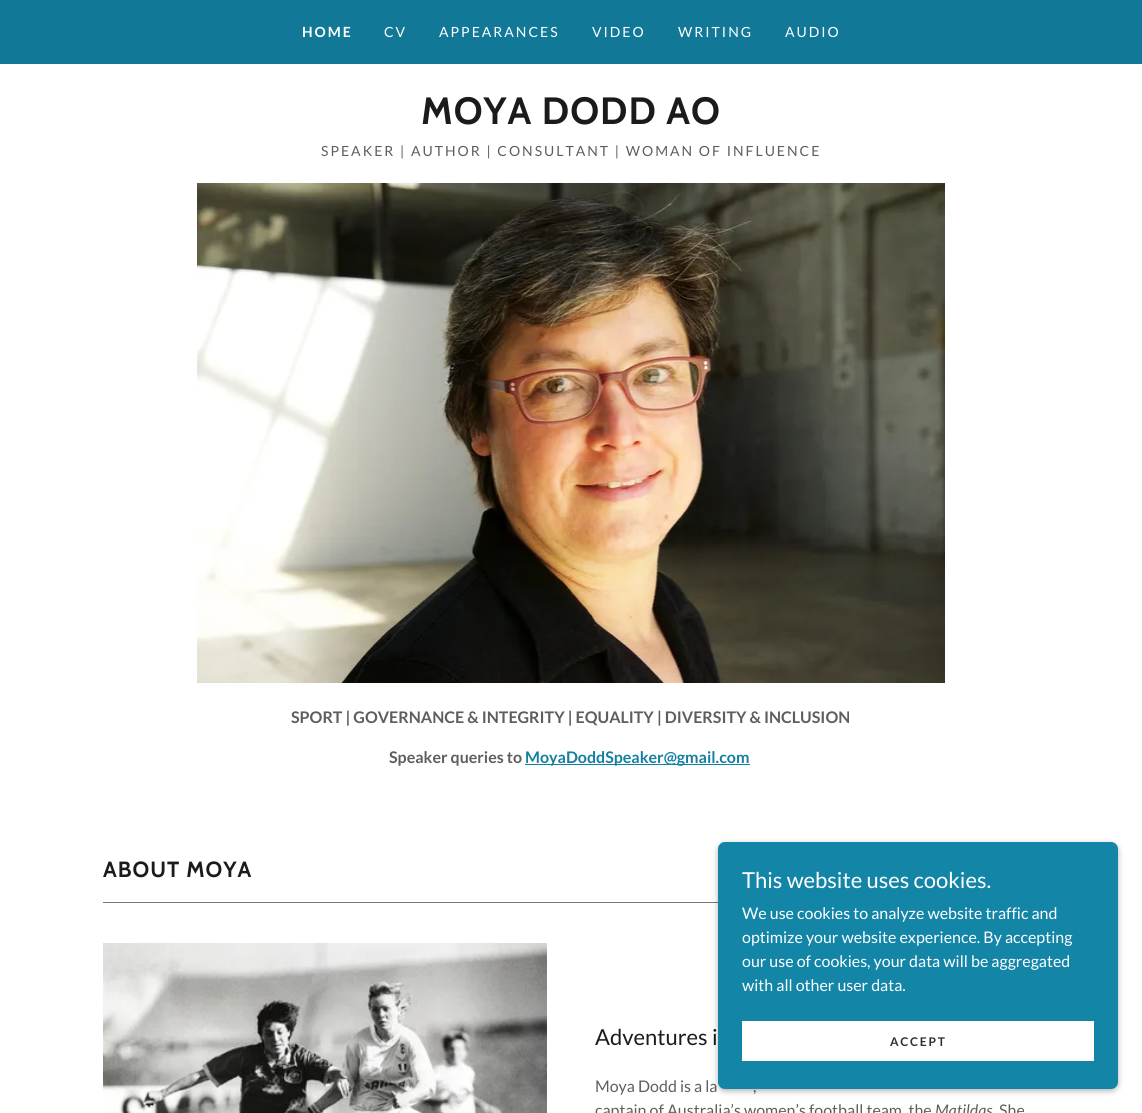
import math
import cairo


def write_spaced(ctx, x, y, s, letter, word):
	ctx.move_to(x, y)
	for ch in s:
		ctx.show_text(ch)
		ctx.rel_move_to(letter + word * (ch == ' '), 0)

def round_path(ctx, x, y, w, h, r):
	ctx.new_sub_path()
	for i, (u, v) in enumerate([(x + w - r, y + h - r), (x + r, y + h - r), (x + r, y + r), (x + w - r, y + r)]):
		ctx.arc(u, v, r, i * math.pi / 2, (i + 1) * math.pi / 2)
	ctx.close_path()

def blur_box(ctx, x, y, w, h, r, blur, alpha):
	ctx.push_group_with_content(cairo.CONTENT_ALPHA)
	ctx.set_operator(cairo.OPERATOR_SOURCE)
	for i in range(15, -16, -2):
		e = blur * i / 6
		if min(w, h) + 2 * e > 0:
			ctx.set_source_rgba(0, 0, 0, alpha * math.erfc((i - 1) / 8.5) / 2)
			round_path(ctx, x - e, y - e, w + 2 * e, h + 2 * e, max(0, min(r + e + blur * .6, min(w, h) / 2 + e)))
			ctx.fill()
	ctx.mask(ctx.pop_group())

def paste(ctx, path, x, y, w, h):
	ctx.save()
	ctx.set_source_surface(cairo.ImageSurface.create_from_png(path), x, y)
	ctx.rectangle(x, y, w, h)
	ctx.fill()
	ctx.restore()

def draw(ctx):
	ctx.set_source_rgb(1, 1, 1)
	ctx.paint()
	ctx.set_source_rgb(0.067, 0.471, 0.592)
	ctx.rectangle(0, 0, 1142, 64)
	ctx.fill()
	ctx.select_font_face('Lato', cairo.FONT_SLANT_NORMAL, cairo.FONT_WEIGHT_BOLD)
	ctx.set_font_size(14)
	ctx.set_source_rgb(1, 1, 1)
	write_spaced(ctx, 302, 37, 'HOME', 2, 0)
	ctx.select_font_face('Lato')
	for x, y, s in [
		(384, 37, 'CV'),
		(439, 37, 'APPEARANCES'),
		(592, 37, 'VIDEO'),
		(678, 37, 'WRITING'),
		(785, 37, 'AUDIO'),
	]:
		write_spaced(ctx, x, y, s, 2, 0)
	ctx.select_font_face('Cabin', cairo.FONT_SLANT_NORMAL, cairo.FONT_WEIGHT_BOLD)
	ctx.set_font_size(38)
	ctx.set_source_rgb(0.106, 0.106, 0.106)
	write_spaced(ctx, 421, 124, 'MOYA DODD AO', 1, 0)
	ctx.select_font_face('Lato')
	ctx.set_font_size(14)
	ctx.set_source_rgb(0.369, 0.369, 0.369)
	write_spaced(ctx, 321, 156, 'SPEAKER | AUTHOR | CONSULTANT | WOMAN OF INFLUENCE', 2, 0)
	paste(ctx, 'media/1.png', 197, 183, 748, 500)
	ctx.select_font_face('Lato', cairo.FONT_SLANT_NORMAL, cairo.FONT_WEIGHT_BOLD)
	ctx.set_font_size(16)
	ctx.move_to(291, 723)
	ctx.show_text('SPORT | GOVERNANCE & INTEGRITY | EQUALITY | DIVERSITY & INCLUSION')
	ctx.move_to(389, 763)
	ctx.show_text('Speaker queries to')
	ctx.set_source_rgb(0.075, 0.502, 0.631)
	ctx.rectangle(525, 764, 225, 1)
	ctx.fill()
	ctx.move_to(525, 763)
	ctx.show_text('MoyaDoddSpeaker@gmail.com')
	ctx.select_font_face('Cabin', cairo.FONT_SLANT_NORMAL, cairo.FONT_WEIGHT_BOLD)
	ctx.set_font_size(22)
	ctx.set_source_rgb(0.106, 0.106, 0.106)
	write_spaced(ctx, 103, 877, 'ABOUT MOYA', 1, 0)
	ctx.set_source_rgb(0.467, 0.467, 0.467)
	ctx.rectangle(103, 902, 615, 1)
	ctx.fill()
	paste(ctx, 'media/2.png', 103, 943, 444, 170)
	ctx.select_font_face('Lato')
	ctx.set_source_rgb(0.106, 0.106, 0.106)
	ctx.move_to(595, 1045)
	ctx.show_text('Adventures i')
	ctx.set_font_size(16)
	ctx.set_source_rgb(0.369, 0.369, 0.369)
	for x, y, s in [
		(595, 1092, 'Moya Dodd is a la'),
		(753, 1092, ','),
		(595, 1116, 'captain of Australia’s women’s football team, the'),
	]:
		ctx.move_to(x, y)
		ctx.show_text(s)
	ctx.select_font_face('Lato', cairo.FONT_SLANT_ITALIC)
	ctx.move_to(935, 1116)
	ctx.show_text('Matildas')
	ctx.select_font_face('Lato')
	ctx.move_to(999, 1116)
	ctx.show_text('She')
	ctx.set_source_rgb(0, 0, 0)
	blur_box(ctx, 718, 844, 400, 247, 7, 3, 0.3)
	ctx.set_source_rgb(0.078, 0.525, 0.659)
	round_path(ctx, 718, 842, 400, 247, 7)
	ctx.fill()
	ctx.set_font_size(22)
	ctx.set_source_rgb(1, 1, 1)
	ctx.move_to(742, 888)
	ctx.show_text('This website uses cookies.')
	ctx.set_font_size(16)
	for x, y, s in [
		(742, 919, 'We use cookies to analyze website traffic and'),
		(742, 943, 'optimize your website experience. By accepting'),
		(742, 967, 'our use of cookies, your data will be aggregated'),
		(742, 991, 'with all other user data.'),
	]:
		ctx.move_to(x, y)
		ctx.show_text(s)
	ctx.rectangle(742, 1021, 352, 40)
	ctx.fill()
	ctx.select_font_face('Lato', cairo.FONT_SLANT_NORMAL, cairo.FONT_WEIGHT_BOLD)
	ctx.set_font_size(12)
	ctx.set_source_rgb(0.188, 0.188, 0.188)
	write_spaced(ctx, 890, 1046, 'ACCEPT', 1.75, 0)


surface = cairo.ImageSurface(cairo.FORMAT_RGB24, 1142, 1113)
ctx = cairo.Context(surface)
options = cairo.FontOptions()
options.set_hint_metrics(cairo.HINT_METRICS_OFF)
options.set_hint_style(cairo.HINT_STYLE_NONE)
ctx.set_font_options(options)
ctx.set_miter_limit(4)
draw(ctx)
surface.write_to_png('image.png')
